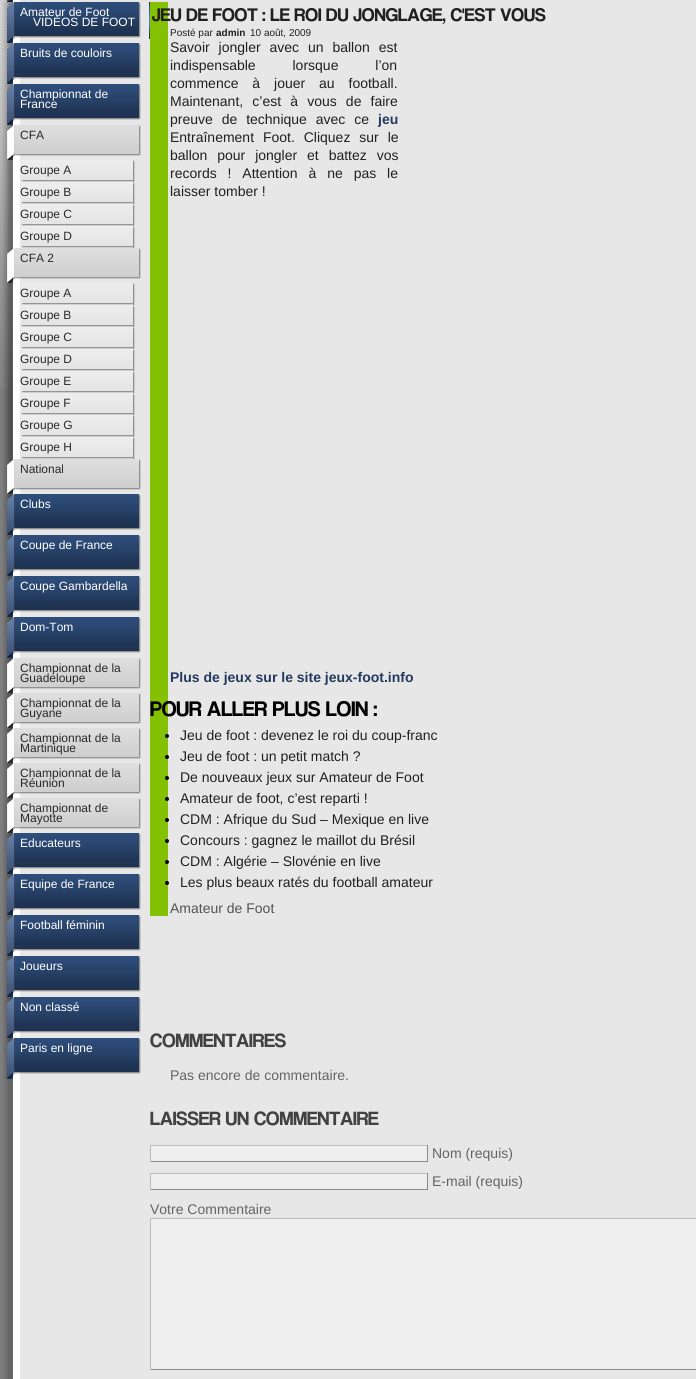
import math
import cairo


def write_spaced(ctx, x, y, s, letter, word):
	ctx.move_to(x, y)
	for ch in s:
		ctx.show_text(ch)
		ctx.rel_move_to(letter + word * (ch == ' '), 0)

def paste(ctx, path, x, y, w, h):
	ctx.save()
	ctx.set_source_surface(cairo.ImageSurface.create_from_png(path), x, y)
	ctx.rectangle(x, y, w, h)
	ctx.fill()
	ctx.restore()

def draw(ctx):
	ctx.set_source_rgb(0.494, 0.494, 0.494)
	ctx.paint()
	paste(ctx, 'media/1.png', 0, 0, 13, 388)
	paste(ctx, 'media/2.png', 2, 2, 694, 1377)
	paste(ctx, 'media/3.png', 2, 2, 139, 41)
	ctx.select_font_face('Liberation Sans')
	ctx.set_font_size(12)
	ctx.set_source_rgb(1, 1, 1)
	ctx.move_to(20, 16)
	ctx.show_text('Amateur de Foot')
	paste(ctx, 'media/4.png', 2, 43, 139, 41)
	ctx.move_to(20, 57)
	ctx.show_text('Bruits de couloirs')
	paste(ctx, 'media/5.png', 2, 84, 139, 41)
	ctx.move_to(20, 98)
	ctx.show_text('Championnat de')
	ctx.move_to(20, 108)
	ctx.show_text('France')
	paste(ctx, 'media/6.png', 2, 125, 139, 35)
	ctx.set_source_rgb(0.161, 0.161, 0.161)
	ctx.move_to(20, 139)
	ctx.show_text('CFA')
	paste(ctx, 'media/7.png', 2, 160, 133, 22)
	ctx.move_to(20, 174)
	ctx.show_text('Groupe A')
	paste(ctx, 'media/8.png', 2, 182, 133, 22)
	ctx.move_to(20, 196)
	ctx.show_text('Groupe B')
	paste(ctx, 'media/9.png', 3, 204, 132, 22)
	ctx.move_to(20, 218)
	ctx.show_text('Groupe C')
	paste(ctx, 'media/10.png', 3, 226, 132, 22)
	ctx.move_to(20, 240)
	ctx.show_text('Groupe D')
	paste(ctx, 'media/11.png', 3, 248, 138, 35)
	ctx.move_to(20, 262)
	ctx.show_text('CFA 2')
	paste(ctx, 'media/12.png', 3, 283, 132, 22)
	ctx.move_to(20, 297)
	ctx.show_text('Groupe A')
	paste(ctx, 'media/13.png', 3, 305, 132, 22)
	ctx.move_to(20, 319)
	ctx.show_text('Groupe B')
	paste(ctx, 'media/14.png', 3, 327, 132, 22)
	ctx.move_to(20, 341)
	ctx.show_text('Groupe C')
	paste(ctx, 'media/15.png', 3, 349, 132, 22)
	ctx.move_to(20, 363)
	ctx.show_text('Groupe D')
	paste(ctx, 'media/16.png', 3, 371, 132, 22)
	ctx.move_to(20, 385)
	ctx.show_text('Groupe E')
	paste(ctx, 'media/17.png', 3, 393, 132, 22)
	ctx.move_to(20, 407)
	ctx.show_text('Groupe F')
	paste(ctx, 'media/17.png', 3, 415, 132, 22)
	ctx.move_to(20, 429)
	ctx.show_text('Groupe G')
	paste(ctx, 'media/17.png', 3, 437, 132, 22)
	ctx.move_to(20, 451)
	ctx.show_text('Groupe H')
	paste(ctx, 'media/18.png', 3, 459, 138, 35)
	ctx.move_to(20, 473)
	ctx.show_text('National')
	paste(ctx, 'media/19.png', 3, 494, 138, 41)
	ctx.set_source_rgb(1, 1, 1)
	ctx.move_to(20, 508)
	ctx.show_text('Clubs')
	paste(ctx, 'media/19.png', 3, 535, 138, 41)
	ctx.move_to(20, 549)
	ctx.show_text('Coupe de France')
	paste(ctx, 'media/19.png', 3, 576, 138, 41)
	ctx.move_to(20, 590)
	ctx.show_text('Coupe Gambardella')
	paste(ctx, 'media/19.png', 3, 617, 138, 41)
	ctx.move_to(20, 631)
	ctx.show_text('Dom-Tom')
	paste(ctx, 'media/18.png', 3, 658, 138, 35)
	ctx.set_source_rgb(0.161, 0.161, 0.161)
	ctx.move_to(20, 672)
	ctx.show_text('Championnat de la')
	ctx.move_to(20, 682)
	ctx.show_text('Guadeloupe')
	paste(ctx, 'media/18.png', 3, 693, 138, 35)
	ctx.move_to(20, 707)
	ctx.show_text('Championnat de la')
	ctx.move_to(20, 717)
	ctx.show_text('Guyane')
	paste(ctx, 'media/18.png', 3, 728, 138, 35)
	ctx.move_to(20, 742)
	ctx.show_text('Championnat de la')
	ctx.move_to(20, 752)
	ctx.show_text('Martinique')
	paste(ctx, 'media/18.png', 3, 763, 138, 35)
	ctx.move_to(20, 777)
	ctx.show_text('Championnat de la')
	ctx.move_to(20, 787)
	ctx.show_text('Réunion')
	paste(ctx, 'media/18.png', 3, 798, 138, 35)
	ctx.move_to(20, 812)
	ctx.show_text('Championnat de')
	ctx.move_to(20, 822)
	ctx.show_text('Mayotte')
	paste(ctx, 'media/19.png', 3, 833, 138, 41)
	ctx.set_source_rgb(1, 1, 1)
	ctx.move_to(20, 847)
	ctx.show_text('Educateurs')
	paste(ctx, 'media/19.png', 3, 874, 138, 41)
	ctx.move_to(20, 888)
	ctx.show_text('Equipe de France')
	paste(ctx, 'media/19.png', 3, 915, 138, 41)
	ctx.move_to(20, 929)
	ctx.show_text('Football féminin')
	paste(ctx, 'media/19.png', 3, 956, 138, 41)
	ctx.move_to(20, 970)
	ctx.show_text('Joueurs')
	paste(ctx, 'media/19.png', 3, 997, 138, 41)
	ctx.move_to(20, 1011)
	ctx.show_text('Non classé')
	paste(ctx, 'media/19.png', 3, 1038, 138, 41)
	ctx.move_to(20, 1052)
	ctx.show_text('Paris en ligne')
	ctx.set_source_rgb(0.518, 0.757, 0.008)
	ctx.rectangle(150, 2, 18, 914)
	ctx.fill()
	ctx.select_font_face('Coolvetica')
	ctx.set_font_size(19)
	ctx.set_source_rgb(0.125, 0.125, 0.125)
	ctx.move_to(152, 21)
	ctx.show_text('JEU DE FOOT : LE ROI DU JONGLAGE, C\'EST VOUS')
	ctx.select_font_face('Liberation Sans')
	ctx.set_font_size(10)
	ctx.move_to(170, 36)
	ctx.show_text('Posté par')
	ctx.select_font_face('Liberation Sans', cairo.FONT_SLANT_NORMAL, cairo.FONT_WEIGHT_BOLD)
	ctx.move_to(216, 36)
	ctx.show_text('admin')
	ctx.select_font_face('Liberation Sans')
	ctx.move_to(250, 36)
	ctx.show_text('10 août, 2009')
	ctx.set_font_size(14)
	write_spaced(ctx, 170, 52, 'Savoir jongler avec un ballon est', 0, 5)
	write_spaced(ctx, 170, 70, 'indispensable lorsque l’on', 0, 33)
	write_spaced(ctx, 170, 88, 'commence à jouer au football.', 0, 10)
	write_spaced(ctx, 170, 106, 'Maintenant, c’est à vous de faire', 0, 5.25)
	write_spaced(ctx, 170, 124, 'preuve de technique avec ce', 0, 5)
	ctx.select_font_face('Liberation Sans', cairo.FONT_SLANT_NORMAL, cairo.FONT_WEIGHT_BOLD)
	ctx.set_source_rgb(0.137, 0.227, 0.369)
	ctx.move_to(378, 124)
	ctx.show_text('jeu')
	ctx.select_font_face('Liberation Sans')
	ctx.set_source_rgb(0.125, 0.125, 0.125)
	write_spaced(ctx, 170, 142, 'Entraînement Foot. Cliquez sur le', 0, 5)
	write_spaced(ctx, 170, 160, 'ballon pour jongler et battez vos', 0, 6)
	write_spaced(ctx, 170, 178, 'records ! Attention à ne pas le', 0, 7)
	ctx.move_to(170, 196)
	ctx.show_text('laisser tomber !')
	ctx.select_font_face('Liberation Sans', cairo.FONT_SLANT_NORMAL, cairo.FONT_WEIGHT_BOLD)
	ctx.set_source_rgb(0.137, 0.227, 0.369)
	ctx.move_to(170, 682)
	ctx.show_text('Plus de jeux sur le site jeux-foot.info')
	ctx.select_font_face('Coolvetica')
	ctx.set_font_size(22)
	ctx.set_source_rgb(0, 0, 0)
	ctx.move_to(150, 716)
	ctx.show_text('POUR ALLER PLUS LOIN :')
	ctx.new_path()
	ctx.arc(167, 736, 2, 0, 2 * math.pi)
	ctx.fill()
	ctx.select_font_face('Liberation Sans')
	ctx.set_font_size(14)
	ctx.set_source_rgb(0.125, 0.125, 0.125)
	ctx.move_to(180, 740)
	ctx.show_text('Jeu de foot : devenez le roi du coup-franc')
	ctx.set_source_rgb(0, 0, 0)
	ctx.new_path()
	ctx.arc(167, 757, 2, 0, 2 * math.pi)
	ctx.fill()
	ctx.set_source_rgb(0.125, 0.125, 0.125)
	ctx.move_to(180, 761)
	ctx.show_text('Jeu de foot : un petit match ?')
	ctx.set_source_rgb(0, 0, 0)
	ctx.new_path()
	ctx.arc(167, 778, 2, 0, 2 * math.pi)
	ctx.fill()
	ctx.set_source_rgb(0.125, 0.125, 0.125)
	ctx.move_to(180, 782)
	ctx.show_text('De nouveaux jeux sur Amateur de Foot')
	ctx.set_source_rgb(0, 0, 0)
	ctx.new_path()
	ctx.arc(167, 799, 2, 0, 2 * math.pi)
	ctx.fill()
	ctx.set_source_rgb(0.125, 0.125, 0.125)
	ctx.move_to(180, 803)
	ctx.show_text('Amateur de foot, c’est reparti !')
	ctx.set_source_rgb(0, 0, 0)
	ctx.new_path()
	ctx.arc(167, 820, 2, 0, 2 * math.pi)
	ctx.fill()
	ctx.set_source_rgb(0.125, 0.125, 0.125)
	ctx.move_to(180, 824)
	ctx.show_text('CDM : Afrique du Sud – Mexique en live')
	ctx.set_source_rgb(0, 0, 0)
	ctx.new_path()
	ctx.arc(167, 841, 2, 0, 2 * math.pi)
	ctx.fill()
	ctx.set_source_rgb(0.125, 0.125, 0.125)
	ctx.move_to(180, 845)
	ctx.show_text('Concours : gagnez le maillot du Brésil')
	ctx.set_source_rgb(0, 0, 0)
	ctx.new_path()
	ctx.arc(167, 862, 2, 0, 2 * math.pi)
	ctx.fill()
	ctx.set_source_rgb(0.125, 0.125, 0.125)
	ctx.move_to(180, 866)
	ctx.show_text('CDM : Algérie – Slovénie en live')
	ctx.set_source_rgb(0, 0, 0)
	ctx.new_path()
	ctx.arc(167, 883, 2, 0, 2 * math.pi)
	ctx.fill()
	ctx.set_source_rgb(0.125, 0.125, 0.125)
	ctx.move_to(180, 887)
	ctx.show_text('Les plus beaux ratés du football amateur')
	ctx.set_source_rgb(0.325, 0.325, 0.325)
	ctx.move_to(170, 913)
	ctx.show_text('Amateur de Foot')
	ctx.select_font_face('Coolvetica')
	ctx.set_font_size(20)
	ctx.set_source_rgb(0.259, 0.259, 0.259)
	ctx.move_to(150, 1047)
	ctx.show_text('COMMENTAIRES')
	ctx.select_font_face('Liberation Sans')
	ctx.set_font_size(14)
	ctx.set_source_rgb(0.392, 0.392, 0.392)
	ctx.move_to(170, 1080)
	ctx.show_text('Pas encore de commentaire.')
	ctx.select_font_face('Coolvetica')
	ctx.set_font_size(20)
	ctx.set_source_rgb(0.259, 0.259, 0.259)
	ctx.move_to(150, 1125)
	ctx.show_text('LAISSER UN COMMENTAIRE')
	ctx.set_source_rgb(0.937, 0.937, 0.937)
	ctx.rectangle(151, 1146, 276, 15)
	ctx.fill()
	ctx.set_source_rgb(0.737, 0.737, 0.737)
	ctx.rectangle(150, 1145, 278, 1)
	ctx.fill()
	ctx.set_source_rgb(0.537, 0.537, 0.537)
	ctx.rectangle(427, 1145, 1, 17)
	ctx.rectangle(150, 1161, 278, 1)
	ctx.fill()
	ctx.set_source_rgb(0.737, 0.737, 0.737)
	ctx.rectangle(150, 1145, 1, 17)
	ctx.fill()
	ctx.select_font_face('Liberation Sans')
	ctx.set_font_size(14)
	ctx.set_source_rgb(0.392, 0.392, 0.392)
	ctx.move_to(432, 1158)
	ctx.show_text('Nom (requis)')
	ctx.set_source_rgb(0.937, 0.937, 0.937)
	ctx.rectangle(151, 1174, 276, 15)
	ctx.fill()
	ctx.set_source_rgb(0.737, 0.737, 0.737)
	ctx.rectangle(150, 1173, 278, 1)
	ctx.fill()
	ctx.set_source_rgb(0.537, 0.537, 0.537)
	ctx.rectangle(427, 1173, 1, 17)
	ctx.rectangle(150, 1189, 278, 1)
	ctx.fill()
	ctx.set_source_rgb(0.737, 0.737, 0.737)
	ctx.rectangle(150, 1173, 1, 17)
	ctx.fill()
	ctx.set_source_rgb(0.392, 0.392, 0.392)
	ctx.move_to(432, 1186)
	ctx.show_text('E-mail (requis)')
	ctx.move_to(150, 1214)
	ctx.show_text('Votre Commentaire')
	ctx.set_source_rgb(0.937, 0.937, 0.937)
	ctx.rectangle(151, 1219, 545, 150)
	ctx.fill()
	ctx.set_source_rgb(0.737, 0.737, 0.737)
	ctx.rectangle(150, 1218, 546, 1)
	ctx.fill()
	ctx.set_source_rgb(0.537, 0.537, 0.537)
	ctx.rectangle(150, 1369, 546, 1)
	ctx.fill()
	ctx.set_source_rgb(0.737, 0.737, 0.737)
	ctx.rectangle(150, 1218, 1, 152)
	ctx.fill()
	paste(ctx, 'media/20.png', 2, 0, 18, 2)
	ctx.set_source_rgb(0.898, 0.898, 0.898)
	ctx.rectangle(20, 0, 676, 2)
	ctx.fill()
	paste(ctx, 'media/21.png', 149, 2, 1, 37)
	ctx.set_font_size(12)
	ctx.set_source_rgb(1, 1, 1)
	ctx.move_to(33, 26)
	ctx.show_text('VIDÉOS DE FOOT')


surface = cairo.ImageSurface(cairo.FORMAT_RGB24, 696, 1379)
ctx = cairo.Context(surface)
options = cairo.FontOptions()
options.set_hint_metrics(cairo.HINT_METRICS_OFF)
options.set_hint_style(cairo.HINT_STYLE_NONE)
ctx.set_font_options(options)
ctx.set_miter_limit(4)
draw(ctx)
surface.write_to_png('image.png')
